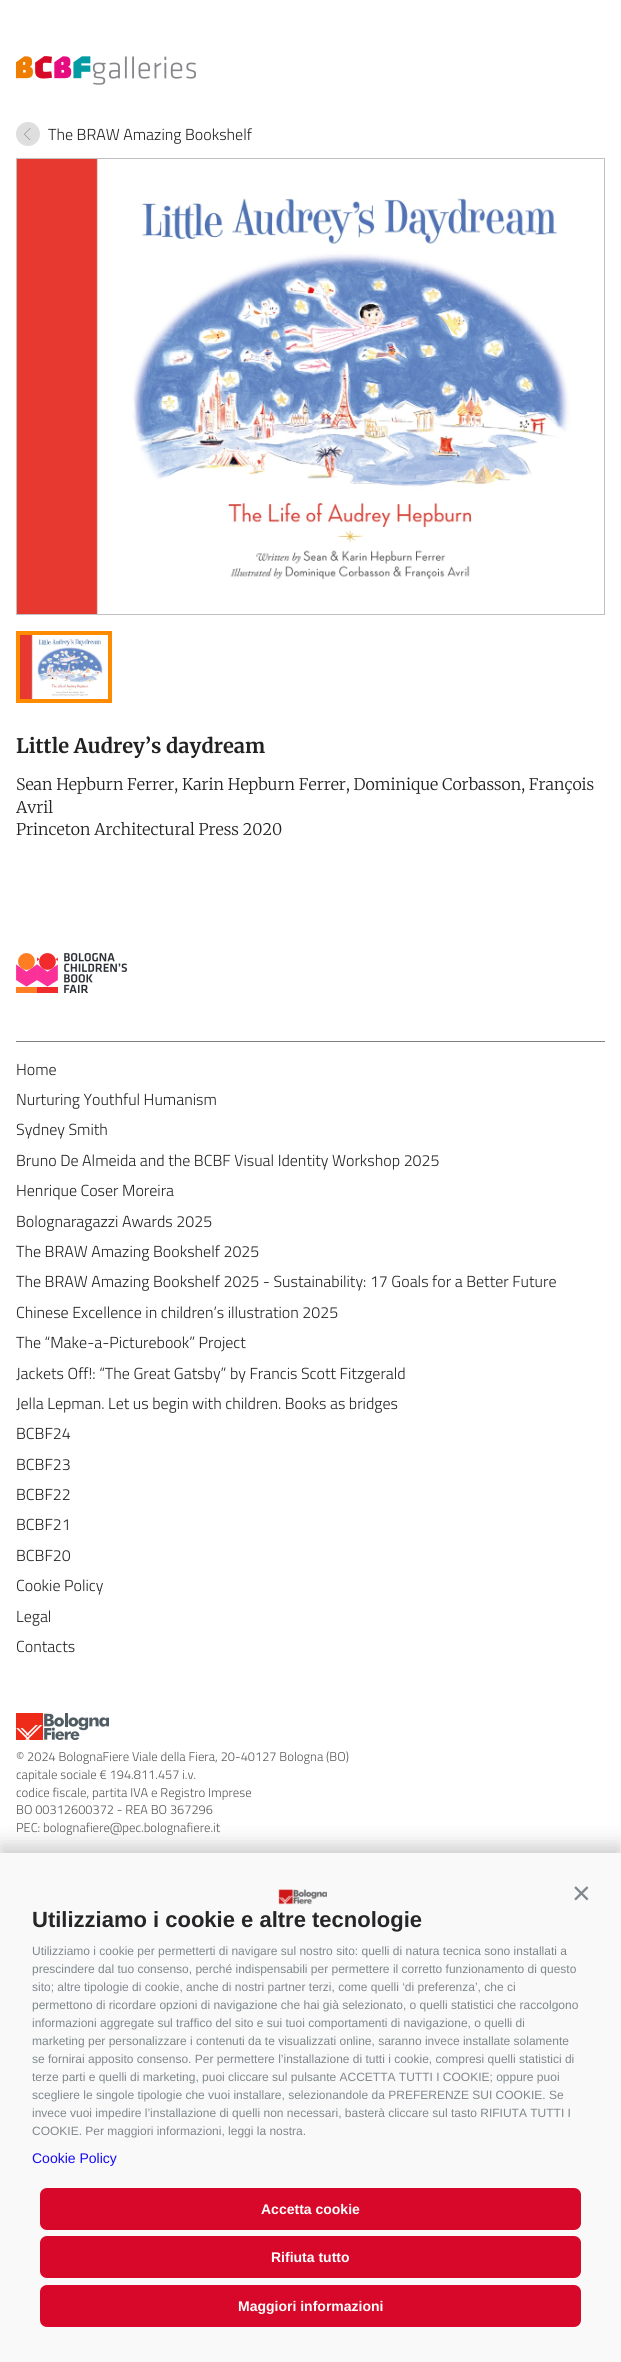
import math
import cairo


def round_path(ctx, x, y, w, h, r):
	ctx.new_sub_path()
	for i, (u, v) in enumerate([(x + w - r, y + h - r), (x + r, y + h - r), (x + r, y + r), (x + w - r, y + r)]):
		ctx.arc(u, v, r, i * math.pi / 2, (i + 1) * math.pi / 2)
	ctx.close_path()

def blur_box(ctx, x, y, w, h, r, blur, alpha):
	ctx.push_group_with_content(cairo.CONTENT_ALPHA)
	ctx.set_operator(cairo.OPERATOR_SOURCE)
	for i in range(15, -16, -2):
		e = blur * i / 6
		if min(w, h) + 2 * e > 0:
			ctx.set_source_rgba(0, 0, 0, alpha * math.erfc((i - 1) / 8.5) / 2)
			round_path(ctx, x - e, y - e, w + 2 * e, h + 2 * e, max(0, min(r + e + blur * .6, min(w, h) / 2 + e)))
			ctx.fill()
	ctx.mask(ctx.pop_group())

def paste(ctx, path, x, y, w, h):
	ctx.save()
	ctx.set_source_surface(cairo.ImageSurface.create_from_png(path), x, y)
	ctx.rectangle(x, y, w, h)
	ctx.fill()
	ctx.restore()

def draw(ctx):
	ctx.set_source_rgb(1, 1, 1)
	ctx.paint()
	paste(ctx, 'media/1.png', 16, 56, 180, 29)
	ctx.set_source_rgb(0.871, 0.871, 0.871)
	ctx.arc(28, 134, 12, 0, 2 * math.pi)
	ctx.fill()
	paste(ctx, 'media/2.png', 24, 128, 7, 12)
	ctx.select_font_face('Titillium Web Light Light')
	ctx.set_font_size(16)
	ctx.set_source_rgb(0.133, 0.133, 0.133)
	ctx.move_to(48, 140)
	ctx.show_text('The BRAW Amazing Bookshelf')
	ctx.rectangle(16.5, 158.5, 588, 456)
	ctx.set_source_rgb(0.753, 0.753, 0.753)
	ctx.set_line_width(1)
	ctx.stroke()
	paste(ctx, 'media/3.png', 17, 159, 587, 455)
	ctx.rectangle(18, 633, 92, 68)
	ctx.set_source_rgb(1, 0.549, 0)
	ctx.set_line_width(4)
	ctx.stroke()
	paste(ctx, 'media/4.png', 20, 635, 83, 64)
	ctx.select_font_face('Merriweather', cairo.FONT_SLANT_NORMAL, cairo.FONT_WEIGHT_BOLD)
	ctx.set_font_size(20)
	ctx.set_source_rgb(0.133, 0.133, 0.133)
	ctx.move_to(16, 753)
	ctx.show_text('Little Audrey’s daydream')
	ctx.select_font_face('Merriweather Light')
	ctx.set_font_size(16)
	for x, y, s in [
		(16, 790, 'Sean Hepburn Ferrer, Karin Hepburn Ferrer, Dominique Corbasson, François'),
		(16, 813, 'Avril'),
		(16, 835, 'Princeton Architectural Press 2020'),
	]:
		ctx.move_to(x, y)
		ctx.show_text(s)
	ctx.set_source_rgb(0.502, 0.502, 0.502)
	ctx.rectangle(16, 1041, 589, 1)
	ctx.fill()
	paste(ctx, 'media/5.png', 16, 953, 111, 40)
	ctx.select_font_face('Titillium Web Light Light')
	ctx.set_source_rgb(0.133, 0.133, 0.133)
	for x, y, s in [
		(16, 1075, 'Home'),
		(16, 1105, 'Nurturing Youthful Humanism'),
		(16, 1135, 'Sydney Smith'),
		(16, 1166, 'Bruno De Almeida and the BCBF Visual Identity Workshop 2025'),
		(16, 1196, 'Henrique Coser Moreira'),
		(16, 1227, 'Bolognaragazzi Awards 2025'),
		(16, 1257, 'The BRAW Amazing Bookshelf 2025'),
		(16, 1287, 'The BRAW Amazing Bookshelf 2025 - Sustainability: 17 Goals for a Better Future'),
		(16, 1318, 'Chinese Excellence in children’s illustration 2025'),
		(16, 1348, 'The “Make-a-Picturebook” Project'),
		(16, 1379, 'Jackets Off!: “The Great Gatsby” by Francis Scott Fitzgerald'),
		(16, 1409, 'Jella Lepman. Let us begin with children. Books as bridges'),
		(16, 1439, 'BCBF24'),
		(16, 1470, 'BCBF23'),
		(16, 1500, 'BCBF22'),
		(16, 1530, 'BCBF21'),
		(16, 1561, 'BCBF20'),
		(16, 1591, 'Cookie Policy'),
		(16, 1622, 'Legal'),
		(16, 1652, 'Contacts'),
	]:
		ctx.move_to(x, y)
		ctx.show_text(s)
	paste(ctx, 'media/6.png', 16, 1713, 93, 27)
	ctx.set_font_size(12.8)
	ctx.set_source_rgb(0.333, 0.333, 0.333)
	for x, y, s in [
		(16, 1761, '© 2024 BolognaFiere Viale della Fiera, 20-40127 Bologna (BO)'),
		(16, 1779, 'capitale sociale € 194.811.457 i.v.'),
		(16, 1797, 'codice fiscale, partita IVA e Registro Imprese'),
		(16, 1814, 'BO 00312600372 - REA BO 367296'),
		(16, 1832, 'PEC: bolognafiere@pec.bolognafiere.it'),
	]:
		ctx.move_to(x, y)
		ctx.show_text(s)
	ctx.set_source_rgb(0, 0, 0)
	blur_box(ctx, 0, 1845, 621, 509, 0, 10, 0.2)
	ctx.set_source_rgb(0.976, 0.976, 0.976)
	ctx.rectangle(0, 1853, 621, 509)
	ctx.fill()
	paste(ctx, 'media/7.png', 278, 1889, 49, 16)
	ctx.select_font_face('Liberation Sans')
	ctx.set_font_size(32)
	ctx.set_source_rgb(0.502, 0.533, 0.549)
	ctx.move_to(572, 1904)
	ctx.show_text('×')
	ctx.select_font_face('Liberation Sans', cairo.FONT_SLANT_NORMAL, cairo.FONT_WEIGHT_BOLD)
	ctx.set_font_size(22)
	ctx.set_source_rgb(0.149, 0.149, 0.157)
	ctx.move_to(32, 1927)
	ctx.show_text('Utilizziamo i cookie e altre tecnologie')
	ctx.select_font_face('Liberation Sans')
	ctx.set_font_size(12)
	ctx.set_source_rgb(0.502, 0.533, 0.549)
	for x, y, s in [
		(32, 1955, 'Utilizziamo i cookie per permetterti di navigare sul nostro sito: quelli di natura tecnica sono installati a'),
		(32, 1973, 'prescindere dal tuo consenso, perché indispensabili per permettere il corretto funzionamento di questo'),
		(32, 1991, 'sito; altre tipologie di cookie, anche di nostri partner terzi, come quelli ‘di preferenza’, che ci'),
		(32, 2009, 'permettono di ricordare opzioni di navigazione che hai già selezionato, o quelli statistici che raccolgono'),
		(32, 2027, 'informazioni aggregate sul traffico del sito e sui tuoi comportamenti di navigazione, o quelli di'),
		(32, 2045, 'marketing per personalizzare i contenuti da te visualizzati online, saranno invece installate solamente'),
		(32, 2063, 'se fornirai apposito consenso. Per permettere l’installazione di tutti i cookie, compresi quelli statistici di'),
		(32, 2081, 'terze parti e quelli di marketing, puoi cliccare sul pulsante ACCETTA TUTTI I COOKIE; oppure puoi'),
		(32, 2099, 'scegliere le singole tipologie che vuoi installare, selezionandole da PREFERENZE SUI COOKIE. Se'),
		(32, 2117, 'invece vuoi impedire l’installazione di quelli non necessari, basterà cliccare sul tasto RIFIUTA TUTTI I'),
		(32, 2135, 'COOKIE. Per maggiori informazioni, leggi la nostra.'),
	]:
		ctx.move_to(x, y)
		ctx.show_text(s)
	ctx.set_font_size(14)
	ctx.set_source_rgb(0.086, 0.043, 0.957)
	ctx.move_to(32, 2163)
	ctx.show_text('Cookie Policy')
	ctx.set_source_rgb(0.843, 0.035, 0.161)
	round_path(ctx, 40, 2188, 541, 42, 7)
	ctx.fill()
	ctx.select_font_face('Liberation Sans', cairo.FONT_SLANT_NORMAL, cairo.FONT_WEIGHT_BOLD)
	ctx.set_source_rgb(1, 1, 1)
	ctx.move_to(261, 2214)
	ctx.show_text('Accetta cookie')
	ctx.set_source_rgb(0.843, 0.035, 0.161)
	round_path(ctx, 40, 2236, 541, 42, 7)
	ctx.fill()
	ctx.set_source_rgb(1, 1, 1)
	ctx.move_to(271, 2262)
	ctx.show_text('Rifiuta tutto')
	ctx.set_source_rgb(0.843, 0.035, 0.161)
	round_path(ctx, 40, 2285, 541, 42, 7)
	ctx.fill()
	ctx.set_source_rgb(1, 1, 1)
	ctx.move_to(238, 2311)
	ctx.show_text('Maggiori informazioni')


surface = cairo.ImageSurface(cairo.FORMAT_RGB24, 621, 2362)
ctx = cairo.Context(surface)
options = cairo.FontOptions()
options.set_hint_metrics(cairo.HINT_METRICS_OFF)
options.set_hint_style(cairo.HINT_STYLE_NONE)
ctx.set_font_options(options)
ctx.set_miter_limit(4)
draw(ctx)
surface.write_to_png('image.png')
